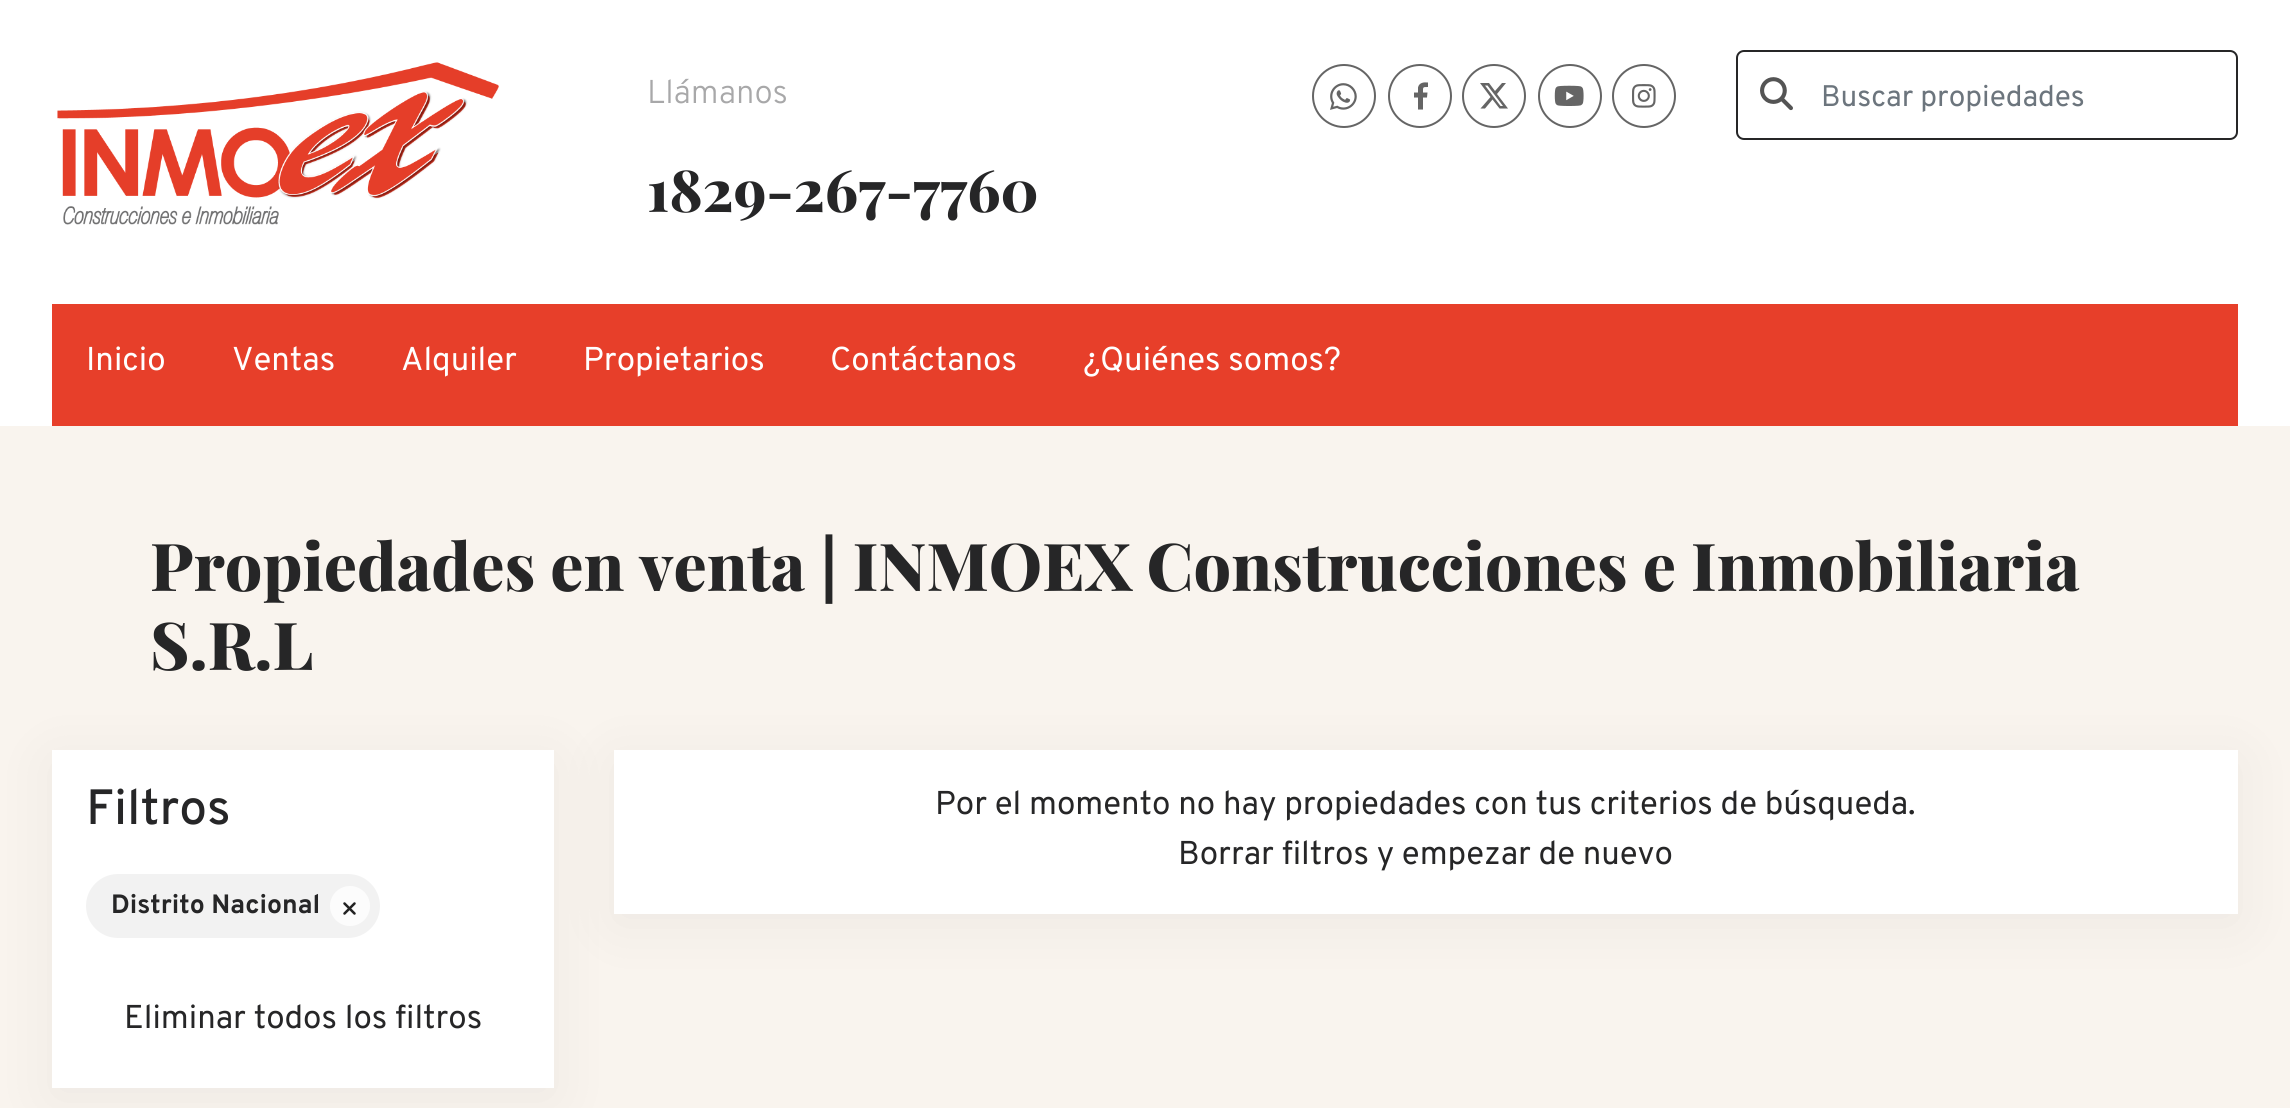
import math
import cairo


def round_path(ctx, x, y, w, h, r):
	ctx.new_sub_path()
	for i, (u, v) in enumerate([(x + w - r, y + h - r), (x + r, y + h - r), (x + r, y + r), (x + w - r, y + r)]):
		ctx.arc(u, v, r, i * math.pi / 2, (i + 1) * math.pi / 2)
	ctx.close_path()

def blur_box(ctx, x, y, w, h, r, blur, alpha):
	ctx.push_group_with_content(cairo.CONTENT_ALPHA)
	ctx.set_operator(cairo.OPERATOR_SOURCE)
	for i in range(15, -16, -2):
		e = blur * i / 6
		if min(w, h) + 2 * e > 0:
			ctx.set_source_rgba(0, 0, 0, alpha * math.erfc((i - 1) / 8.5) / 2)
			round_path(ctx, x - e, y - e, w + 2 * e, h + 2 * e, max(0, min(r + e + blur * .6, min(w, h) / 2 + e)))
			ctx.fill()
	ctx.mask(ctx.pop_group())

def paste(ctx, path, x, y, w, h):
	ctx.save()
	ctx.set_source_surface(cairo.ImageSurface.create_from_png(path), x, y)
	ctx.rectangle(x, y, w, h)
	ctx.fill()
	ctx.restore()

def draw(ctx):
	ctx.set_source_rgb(1, 1, 1)
	ctx.paint()
	paste(ctx, 'media/1.png', 57, 62, 442, 163)
	ctx.select_font_face('Overpass Light')
	ctx.set_font_size(33)
	ctx.set_source_rgb(0.659, 0.659, 0.663)
	ctx.move_to(647, 103)
	ctx.show_text('Llámanos')
	ctx.select_font_face('Playfair Display ExtraBold')
	ctx.set_font_size(57.75)
	ctx.set_source_rgb(0.149, 0.149, 0.153)
	ctx.move_to(647, 212)
	ctx.show_text('1829-267-7760')
	paste(ctx, 'media/2.png', 1312, 64, 64, 64)
	ctx.arc(1420, 96, 31, 0, 2 * math.pi)
	ctx.set_source_rgb(0.396, 0.396, 0.396)
	ctx.stroke()
	ctx.new_path()
	ctx.move_to(1418, 109.5)
	ctx.line_to(1418, 97.5)
	ctx.line_to(1414, 97.5)
	ctx.line_to(1414, 92.5)
	ctx.line_to(1418, 92.5)
	ctx.line_to(1418, 87.5)
	ctx.curve_to(1419, 82.5, 1424, 82, 1428, 82.5)
	ctx.line_to(1428, 87)
	ctx.curve_to(1422.5, 87, 1423, 87, 1423, 92.5)
	ctx.line_to(1427.5, 92.5)
	ctx.line_to(1427, 97.5)
	ctx.line_to(1423, 97.5)
	ctx.line_to(1423, 109.5)
	ctx.close_path()
	ctx.fill()
	ctx.arc(1494, 96, 31, 0, 2 * math.pi)
	ctx.stroke()
	ctx.new_path()
	ctx.move_to(1502, 83)
	ctx.line_to(1506, 83)
	ctx.line_to(1497, 94)
	ctx.line_to(1508, 108.5)
	ctx.line_to(1499.5, 108.5)
	ctx.line_to(1492.5, 99.5)
	ctx.line_to(1485, 108.5)
	ctx.line_to(1480.5, 108.5)
	ctx.line_to(1490.5, 97)
	ctx.line_to(1480, 83)
	ctx.line_to(1489, 83)
	ctx.line_to(1495, 91)
	ctx.close_path()
	ctx.move_to(1500.5, 106)
	ctx.line_to(1503, 106)
	ctx.line_to(1487.5, 85.5)
	ctx.line_to(1485, 85.5)
	ctx.close_path()
	ctx.fill()
	paste(ctx, 'media/3.png', 1538, 64, 64, 64)
	paste(ctx, 'media/4.png', 1612, 64, 64, 64)
	round_path(ctx, 1737, 51, 500, 88, 7)
	ctx.set_source_rgb(0.149, 0.149, 0.153)
	ctx.stroke()
	paste(ctx, 'media/5.png', 1760, 77, 33, 34)
	ctx.select_font_face('Overpass')
	ctx.set_font_size(29.75)
	ctx.set_source_rgb(0.424, 0.459, 0.49)
	ctx.move_to(1821, 106)
	ctx.show_text('Buscar propiedades')
	ctx.set_source_rgb(0.906, 0.247, 0.165)
	ctx.rectangle(52, 304, 2186, 122)
	ctx.fill()
	ctx.set_font_size(33)
	ctx.set_source_rgb(1, 1, 1)
	for x, y, s in [
		(86, 370, 'Inicio'),
		(232, 370, 'Ventas'),
		(401, 370, 'Alquiler'),
		(583, 370, 'Propietarios'),
		(830, 370, 'Contáctanos'),
		(1083, 370, '¿Quiénes somos?'),
	]:
		ctx.move_to(x, y)
		ctx.show_text(s)
	ctx.set_source_rgb(0.976, 0.957, 0.933)
	ctx.rectangle(0, 426, 2290, 682)
	ctx.fill()
	ctx.select_font_face('Playfair Display ExtraBold')
	ctx.set_font_size(66)
	ctx.set_source_rgb(0.149, 0.149, 0.153)
	ctx.move_to(150, 591)
	ctx.show_text('Propiedades en venta | INMOEX Construcciones e Inmobiliaria')
	ctx.move_to(150, 670)
	ctx.show_text('S.R.L')
	ctx.set_source_rgb(0, 0, 0)
	blur_box(ctx, 52, 760, 502, 338, 0, 30, 0.05)
	ctx.set_source_rgb(1, 1, 1)
	ctx.rectangle(52, 750, 502, 338)
	ctx.fill()
	ctx.select_font_face('Overpass Medium')
	ctx.set_font_size(49.5)
	ctx.set_source_rgb(0.149, 0.149, 0.153)
	ctx.move_to(86, 824)
	ctx.show_text('Filtros')
	ctx.set_source_rgb(0.949, 0.949, 0.949)
	round_path(ctx, 86, 874, 294, 64, 32)
	ctx.fill()
	ctx.select_font_face('Overpass', cairo.FONT_SLANT_NORMAL, cairo.FONT_WEIGHT_BOLD)
	ctx.set_font_size(26.5)
	ctx.set_source_rgb(0.149, 0.149, 0.153)
	ctx.move_to(111, 913)
	ctx.show_text('Distrito Nacional')
	ctx.set_source_rgb(0.988, 0.988, 0.988)
	ctx.new_path()
	ctx.arc(350, 906, 20, 0, 2 * math.pi)
	ctx.fill()
	paste(ctx, 'media/6.png', 343, 902, 13, 13)
	ctx.select_font_face('Overpass')
	ctx.set_font_size(33)
	ctx.set_source_rgb(0.149, 0.149, 0.153)
	ctx.move_to(124, 1028)
	ctx.show_text('Eliminar todos los filtros')
	ctx.set_source_rgb(0, 0, 0)
	blur_box(ctx, 614, 760, 1624, 164, 0, 30, 0.05)
	ctx.set_source_rgb(1, 1, 1)
	ctx.rectangle(614, 750, 1624, 164)
	ctx.fill()
	ctx.set_source_rgb(0.149, 0.149, 0.153)
	ctx.move_to(935, 814)
	ctx.show_text('Por el momento no hay propiedades con tus criterios de búsqueda.')
	ctx.move_to(1178, 864)
	ctx.show_text('Borrar filtros y empezar de nuevo')


surface = cairo.ImageSurface(cairo.FORMAT_RGB24, 2290, 1108)
ctx = cairo.Context(surface)
options = cairo.FontOptions()
options.set_hint_metrics(cairo.HINT_METRICS_OFF)
options.set_hint_style(cairo.HINT_STYLE_NONE)
ctx.set_font_options(options)
ctx.set_miter_limit(4)
draw(ctx)
surface.write_to_png('image.png')
